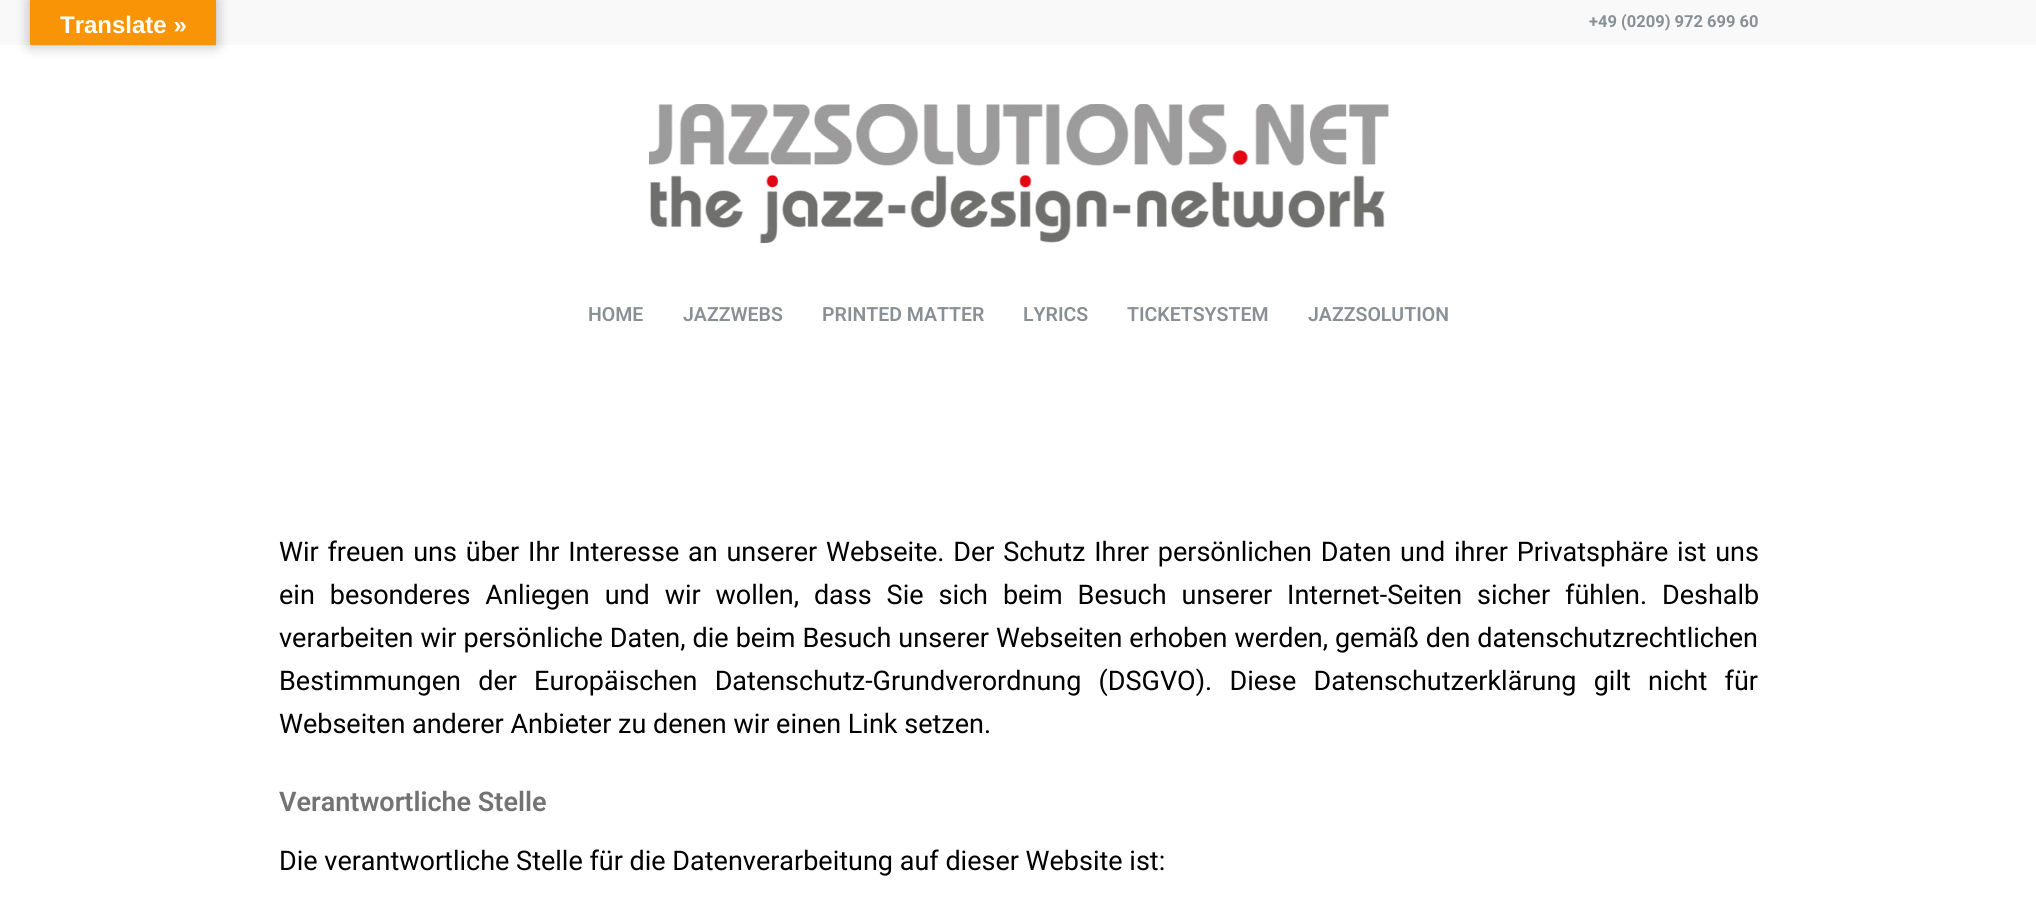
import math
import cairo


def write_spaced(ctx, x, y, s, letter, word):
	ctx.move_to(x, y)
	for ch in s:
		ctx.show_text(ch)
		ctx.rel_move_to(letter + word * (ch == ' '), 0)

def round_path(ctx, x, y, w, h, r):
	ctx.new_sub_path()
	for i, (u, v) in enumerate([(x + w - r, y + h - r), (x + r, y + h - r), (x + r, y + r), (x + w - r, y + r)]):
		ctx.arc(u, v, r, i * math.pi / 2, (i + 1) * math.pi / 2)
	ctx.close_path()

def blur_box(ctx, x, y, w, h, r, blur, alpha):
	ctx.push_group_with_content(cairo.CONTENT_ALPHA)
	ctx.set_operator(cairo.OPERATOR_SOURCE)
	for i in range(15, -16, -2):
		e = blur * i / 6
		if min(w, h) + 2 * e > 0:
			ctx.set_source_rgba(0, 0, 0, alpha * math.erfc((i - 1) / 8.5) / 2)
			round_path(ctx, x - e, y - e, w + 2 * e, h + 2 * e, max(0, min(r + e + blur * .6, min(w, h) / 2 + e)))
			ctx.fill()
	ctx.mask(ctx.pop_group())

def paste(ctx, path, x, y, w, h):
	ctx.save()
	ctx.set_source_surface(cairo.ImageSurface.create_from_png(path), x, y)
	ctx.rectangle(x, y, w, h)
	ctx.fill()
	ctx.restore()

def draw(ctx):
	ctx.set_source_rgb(1, 1, 1)
	ctx.paint()
	ctx.set_source_rgb(0.973, 0.973, 0.973)
	ctx.rectangle(0, 0, 2036, 45)
	ctx.fill()
	ctx.set_source_rgb(0, 0, 0)
	blur_box(ctx, 30, 0, 186, 45, 0, 7, 0.3)
	ctx.set_source_rgb(0.973, 0.58, 0.024)
	ctx.rectangle(30, 0, 186, 45)
	ctx.fill()
	ctx.select_font_face('Liberation Sans', cairo.FONT_SLANT_NORMAL, cairo.FONT_WEIGHT_BOLD)
	ctx.set_font_size(24)
	ctx.set_source_rgb(1, 1, 1)
	ctx.move_to(60, 33)
	ctx.show_text('Translate »')
	ctx.select_font_face('Roboto', cairo.FONT_SLANT_NORMAL, cairo.FONT_WEIGHT_BOLD)
	ctx.set_font_size(16.5)
	ctx.set_source_rgb(0.533, 0.565, 0.584)
	ctx.move_to(1589, 27)
	ctx.show_text('+49 (0209) 972 699 60')
	paste(ctx, 'media/1.png', 649, 104, 740, 139)
	ctx.select_font_face('Roboto SemiBold')
	ctx.set_font_size(19.5)
	for x, y, s in [
		(588, 321, 'HOME'),
		(683, 321, 'JAZZWEBS'),
		(822, 321, 'PRINTED MATTER'),
		(1023, 321, 'LYRICS'),
		(1127, 321, 'TICKETSYSTEM'),
		(1308, 321, 'JAZZSOLUTION'),
	]:
		ctx.move_to(x, y)
		ctx.show_text(s)
	ctx.select_font_face('Roboto')
	ctx.set_font_size(27)
	ctx.set_source_rgb(0, 0, 0)
	write_spaced(ctx, 279, 561, 'Wir freuen uns über Ihr Interesse an unserer Webseite. Der Schutz Ihrer persönlichen Daten und ihrer Privatsphäre ist uns', 0, 2.1)
	write_spaced(ctx, 279, 604, 'ein besonderes Anliegen und wir wollen, dass Sie sich beim Besuch unserer Internet-Seiten sicher fühlen. Deshalb', 0, 8.25)
	write_spaced(ctx, 279, 647, 'verarbeiten wir persönliche Daten, die beim Besuch unserer Webseiten erhoben werden, gemäß den datenschutzrechtlichen', 0, 0.3)
	write_spaced(ctx, 279, 690, 'Bestimmungen der Europäischen Datenschutz-Grundverordnung (DSGVO). Diese Datenschutzerklärung gilt nicht für', 0, 10.5)
	ctx.move_to(279, 733)
	ctx.show_text('Webseiten anderer Anbieter zu denen wir einen Link setzen.')
	ctx.select_font_face('Roboto SemiBold')
	ctx.set_source_rgb(0.451, 0.451, 0.451)
	ctx.move_to(279, 811)
	ctx.show_text('Verantwortliche Stelle')
	ctx.select_font_face('Roboto')
	ctx.set_source_rgb(0, 0, 0)
	ctx.move_to(279, 870)
	ctx.show_text('Die verantwortliche Stelle für die Datenverarbeitung auf dieser Website ist:')


surface = cairo.ImageSurface(cairo.FORMAT_RGB24, 2036, 924)
ctx = cairo.Context(surface)
options = cairo.FontOptions()
options.set_hint_metrics(cairo.HINT_METRICS_OFF)
options.set_hint_style(cairo.HINT_STYLE_NONE)
ctx.set_font_options(options)
ctx.set_miter_limit(4)
draw(ctx)
surface.write_to_png('image.png')
